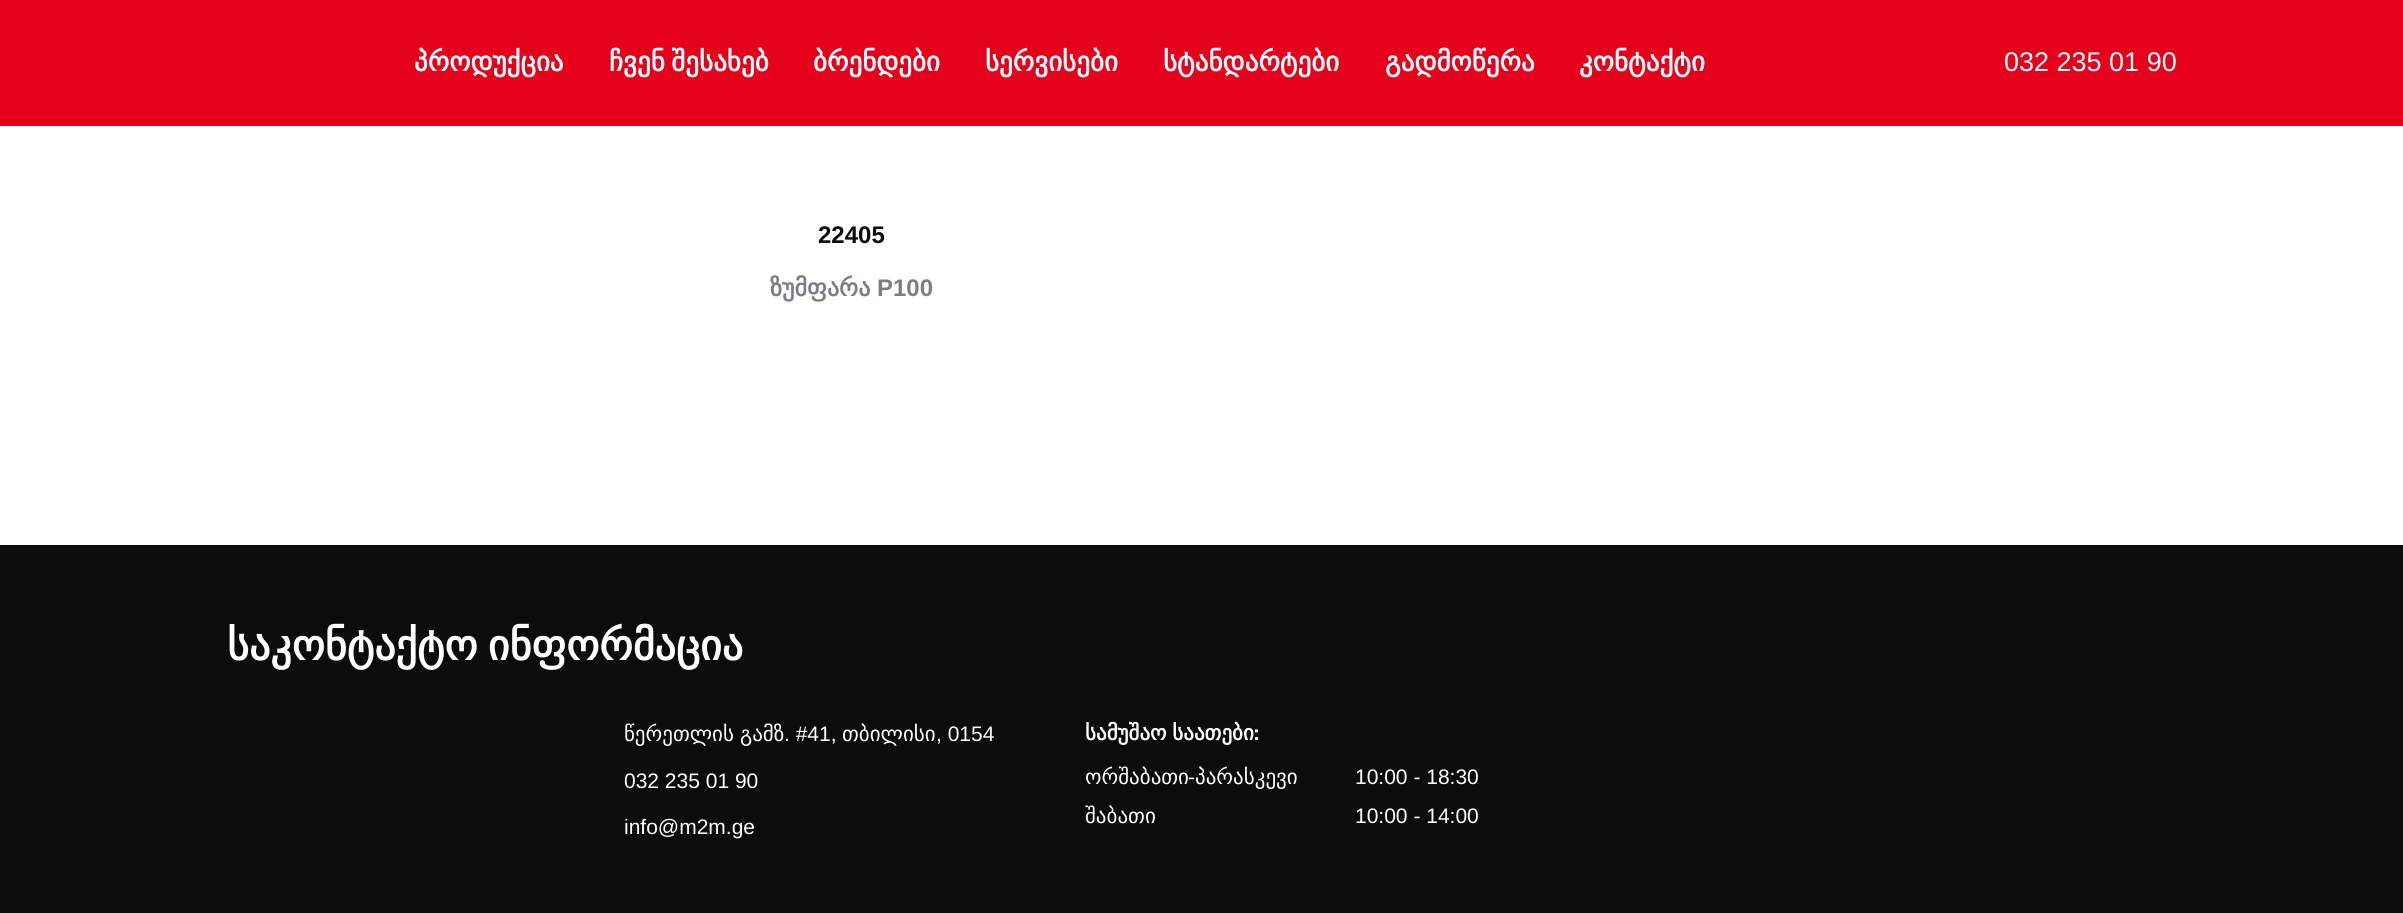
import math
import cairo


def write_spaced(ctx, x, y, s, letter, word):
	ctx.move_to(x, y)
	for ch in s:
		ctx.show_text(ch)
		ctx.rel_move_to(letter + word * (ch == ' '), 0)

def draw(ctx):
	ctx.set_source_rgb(1, 1, 1)
	ctx.paint()
	ctx.set_source_rgb(0.898, 0, 0.106)
	ctx.rectangle(0, 0, 2403, 126)
	ctx.fill()
	ctx.select_font_face('DejaVu Sans', cairo.FONT_SLANT_NORMAL, cairo.FONT_WEIGHT_BOLD)
	ctx.set_font_size(27)
	ctx.set_source_rgb(1, 1, 1)
	ctx.move_to(414, 71)
	ctx.show_text('პროდუქცია')
	write_spaced(ctx, 609, 71, 'ჩვენ შესახებ', 0, -2)
	for x, y, s in [
		(813, 71, 'ბრენდები'),
		(985, 71, 'სერვისები'),
		(1163, 71, 'სტანდარტები'),
		(1385, 71, 'გადმოწერა'),
		(1579, 71, 'კონტაქტი'),
	]:
		ctx.move_to(x, y)
		ctx.show_text(s)
	ctx.select_font_face('Liberation Sans')
	ctx.move_to(2004, 71)
	ctx.show_text('032 235 01 90')
	ctx.select_font_face('Liberation Sans', cairo.FONT_SLANT_NORMAL, cairo.FONT_WEIGHT_BOLD)
	ctx.set_font_size(24)
	ctx.set_source_rgb(0.047, 0.047, 0.047)
	ctx.move_to(818, 243)
	ctx.show_text('22405')
	ctx.select_font_face('DejaVu Sans', cairo.FONT_SLANT_NORMAL, cairo.FONT_WEIGHT_BOLD)
	ctx.set_source_rgb(0.49, 0.49, 0.537)
	ctx.move_to(770, 296)
	ctx.show_text('ზუმფარა')
	ctx.select_font_face('Liberation Sans', cairo.FONT_SLANT_NORMAL, cairo.FONT_WEIGHT_BOLD)
	ctx.move_to(877, 296)
	ctx.show_text('P100')
	ctx.set_source_rgb(0.047, 0.047, 0.047)
	ctx.rectangle(0, 545, 2403, 368)
	ctx.fill()
	ctx.select_font_face('DejaVu Sans', cairo.FONT_SLANT_NORMAL, cairo.FONT_WEIGHT_BOLD)
	ctx.set_font_size(42)
	ctx.set_source_rgb(1, 1, 1)
	write_spaced(ctx, 227, 660, 'საკონტაქტო ინფორმაცია', 0, -3)
	ctx.select_font_face('DejaVu Sans')
	ctx.set_font_size(21)
	ctx.move_to(624, 741)
	ctx.show_text('წერეთლის')
	ctx.move_to(740, 741)
	ctx.show_text('გამზ')
	ctx.select_font_face('Liberation Sans')
	ctx.move_to(784, 741)
	ctx.show_text('. #41,')
	ctx.select_font_face('DejaVu Sans')
	ctx.move_to(842, 741)
	ctx.show_text('თბილისი')
	ctx.select_font_face('Liberation Sans')
	for x, y, s in [
		(936, 741, ', 0154'),
		(624, 788, '032 235 01 90'),
		(624, 834, 'info@m2m.ge'),
	]:
		ctx.move_to(x, y)
		ctx.show_text(s)
	ctx.select_font_face('DejaVu Sans', cairo.FONT_SLANT_NORMAL, cairo.FONT_WEIGHT_BOLD)
	write_spaced(ctx, 1085, 740, 'სამუშაო საათები', 0, -1)
	ctx.select_font_face('Liberation Sans', cairo.FONT_SLANT_NORMAL, cairo.FONT_WEIGHT_BOLD)
	ctx.move_to(1253, 740)
	ctx.show_text(':')
	ctx.select_font_face('DejaVu Sans')
	ctx.move_to(1085, 784)
	ctx.show_text('ორშაბათი')
	ctx.select_font_face('Liberation Sans')
	ctx.move_to(1188, 784)
	ctx.show_text('-')
	ctx.select_font_face('DejaVu Sans')
	ctx.move_to(1195, 784)
	ctx.show_text('პარასკევი')
	ctx.select_font_face('Liberation Sans')
	ctx.move_to(1355, 784)
	ctx.show_text('10:00 - 18:30')
	ctx.select_font_face('DejaVu Sans')
	ctx.move_to(1085, 823)
	ctx.show_text('შაბათი')
	ctx.select_font_face('Liberation Sans')
	ctx.move_to(1355, 823)
	ctx.show_text('10:00 - 14:00')


surface = cairo.ImageSurface(cairo.FORMAT_RGB24, 2403, 913)
ctx = cairo.Context(surface)
options = cairo.FontOptions()
options.set_hint_metrics(cairo.HINT_METRICS_OFF)
options.set_hint_style(cairo.HINT_STYLE_NONE)
ctx.set_font_options(options)
ctx.set_miter_limit(4)
draw(ctx)
surface.write_to_png('image.png')
